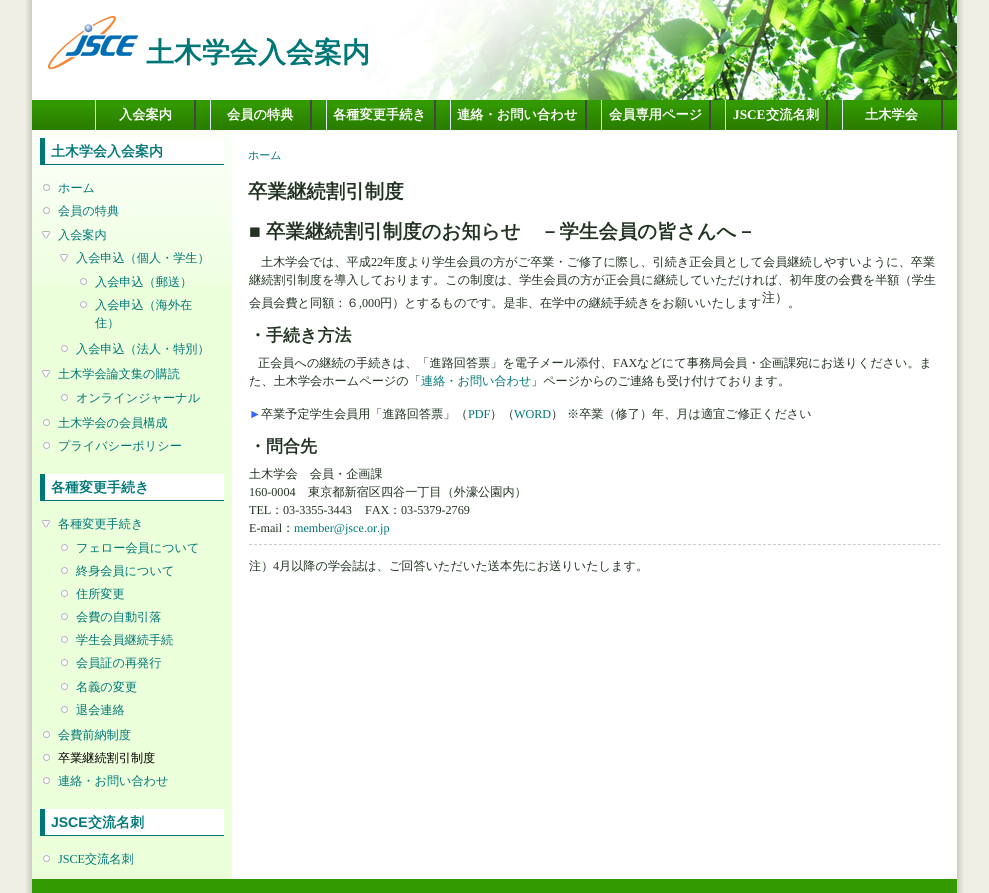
import math
import cairo


def paste(ctx, path, x, y, w, h):
	ctx.save()
	ctx.set_source_surface(cairo.ImageSurface.create_from_png(path), x, y)
	ctx.rectangle(x, y, w, h)
	ctx.fill()
	ctx.restore()

def draw(ctx):
	ctx.set_source_rgb(0.941, 0.937, 0.898)
	ctx.paint()
	paste(ctx, 'media/1.png', 26, 0, 931, 893)
	paste(ctx, 'media/2.png', 957, 0, 32, 893)
	ctx.set_source_rgb(1, 1, 1)
	ctx.rectangle(32, 0, 200, 100)
	ctx.fill()
	paste(ctx, 'media/3.png', 364, 0, 593, 100)
	paste(ctx, 'media/4.png', 48, 16, 90, 53)
	ctx.select_font_face('WenQuanYi Zen Hei', cairo.FONT_SLANT_NORMAL, cairo.FONT_WEIGHT_BOLD)
	ctx.set_font_size(28)
	ctx.set_source_rgb(0, 0.467, 0.467)
	ctx.move_to(146, 62)
	ctx.show_text('土木学会入会案内')
	ctx.set_source_rgb(0.2, 0.6, 0)
	ctx.rectangle(32, 100, 925, 7)
	ctx.fill()
	paste(ctx, 'media/5.png', 32, 107, 925, 23)
	ctx.set_source_rgb(0.271, 0.271, 0.271)
	ctx.rectangle(194, 100, 2, 30)
	ctx.fill()
	ctx.set_source_rgb(0.878, 0.898, 1)
	ctx.rectangle(95, 100, 1, 30)
	ctx.fill()
	ctx.set_font_size(13.25)
	ctx.set_source_rgb(1, 1, 1)
	ctx.move_to(119, 119)
	ctx.show_text('入会案内')
	ctx.set_source_rgb(0.271, 0.271, 0.271)
	ctx.rectangle(310, 100, 2, 30)
	ctx.fill()
	ctx.set_source_rgb(0.878, 0.898, 1)
	ctx.rectangle(210, 100, 1, 30)
	ctx.fill()
	ctx.set_source_rgb(1, 1, 1)
	ctx.move_to(227, 119)
	ctx.show_text('会員の特典')
	ctx.set_source_rgb(0.271, 0.271, 0.271)
	ctx.rectangle(434, 100, 2, 30)
	ctx.fill()
	ctx.set_source_rgb(0.878, 0.898, 1)
	ctx.rectangle(326, 100, 1, 30)
	ctx.fill()
	ctx.set_source_rgb(1, 1, 1)
	ctx.move_to(333, 119)
	ctx.show_text('各種変更手続き')
	ctx.set_source_rgb(0.271, 0.271, 0.271)
	ctx.rectangle(585, 100, 2, 30)
	ctx.fill()
	ctx.set_source_rgb(0.878, 0.898, 1)
	ctx.rectangle(450, 100, 1, 30)
	ctx.fill()
	ctx.set_source_rgb(1, 1, 1)
	ctx.move_to(457, 119)
	ctx.show_text('連絡・お問い合わせ')
	ctx.set_source_rgb(0.271, 0.271, 0.271)
	ctx.rectangle(709, 100, 2, 30)
	ctx.fill()
	ctx.set_source_rgb(0.878, 0.898, 1)
	ctx.rectangle(601, 100, 1, 30)
	ctx.fill()
	ctx.set_source_rgb(1, 1, 1)
	ctx.move_to(609, 119)
	ctx.show_text('会員専用ページ')
	ctx.set_source_rgb(0.271, 0.271, 0.271)
	ctx.rectangle(826, 100, 2, 30)
	ctx.fill()
	ctx.set_source_rgb(0.878, 0.898, 1)
	ctx.rectangle(725, 100, 1, 30)
	ctx.fill()
	ctx.select_font_face('Liberation Serif', cairo.FONT_SLANT_NORMAL, cairo.FONT_WEIGHT_BOLD)
	ctx.set_source_rgb(1, 1, 1)
	ctx.move_to(733, 119)
	ctx.show_text('JSCE')
	ctx.select_font_face('WenQuanYi Zen Hei', cairo.FONT_SLANT_NORMAL, cairo.FONT_WEIGHT_BOLD)
	ctx.move_to(766, 119)
	ctx.show_text('交流名刺')
	ctx.set_source_rgb(0.271, 0.271, 0.271)
	ctx.rectangle(941, 100, 2, 30)
	ctx.fill()
	ctx.set_source_rgb(0.878, 0.898, 1)
	ctx.rectangle(842, 100, 1, 30)
	ctx.fill()
	ctx.set_source_rgb(1, 1, 1)
	ctx.move_to(865, 119)
	ctx.show_text('土木学会')
	paste(ctx, 'media/6.png', 32, 130, 200, 156)
	ctx.rectangle(45, 138, 179, 26)
	ctx.fill()
	ctx.set_source_rgb(0, 0.467, 0.467)
	ctx.rectangle(40, 164, 184, 1)
	ctx.rectangle(40, 138, 5, 27)
	ctx.fill()
	ctx.set_font_size(14)
	ctx.move_to(51, 156)
	ctx.show_text('土木学会入会案内')
	paste(ctx, 'media/7.png', 43, 184, 7, 7)
	ctx.select_font_face('WenQuanYi Zen Hei Medium')
	ctx.set_font_size(12.15)
	ctx.move_to(58, 192)
	ctx.show_text('ホーム')
	paste(ctx, 'media/8.png', 43, 207, 7, 7)
	ctx.move_to(58, 215)
	ctx.show_text('会員の特典')
	paste(ctx, 'media/9.png', 41, 231, 10, 8)
	ctx.move_to(58, 239)
	ctx.show_text('入会案内')
	paste(ctx, 'media/10.png', 59, 254, 10, 8)
	ctx.move_to(76, 262)
	ctx.show_text('入会申込（個人・学生）')
	paste(ctx, 'media/11.png', 80, 278, 7, 7)
	ctx.move_to(95, 286)
	ctx.show_text('入会申込（郵送）')
	paste(ctx, 'media/12.png', 80, 301, 7, 7)
	ctx.move_to(95, 309)
	ctx.show_text('入会申込（海外在')
	ctx.move_to(95, 327)
	ctx.show_text('住）')
	paste(ctx, 'media/12.png', 61, 345, 7, 7)
	ctx.move_to(76, 353)
	ctx.show_text('入会申込（法人・特別）')
	paste(ctx, 'media/13.png', 41, 370, 10, 8)
	ctx.move_to(58, 378)
	ctx.show_text('土木学会論文集の購読')
	paste(ctx, 'media/12.png', 61, 394, 7, 7)
	ctx.move_to(76, 402)
	ctx.show_text('オンラインジャーナル')
	paste(ctx, 'media/12.png', 43, 419, 7, 7)
	ctx.move_to(58, 427)
	ctx.show_text('土木学会の会員構成')
	paste(ctx, 'media/12.png', 43, 442, 7, 7)
	ctx.move_to(58, 450)
	ctx.show_text('プライバシーポリシー')
	ctx.set_source_rgb(1, 1, 1)
	ctx.rectangle(45, 474, 179, 26)
	ctx.fill()
	ctx.set_source_rgb(0, 0.467, 0.467)
	ctx.rectangle(40, 500, 184, 1)
	ctx.rectangle(40, 474, 5, 27)
	ctx.fill()
	ctx.select_font_face('WenQuanYi Zen Hei', cairo.FONT_SLANT_NORMAL, cairo.FONT_WEIGHT_BOLD)
	ctx.set_font_size(14)
	ctx.move_to(51, 492)
	ctx.show_text('各種変更手続き')
	paste(ctx, 'media/13.png', 41, 520, 10, 8)
	ctx.select_font_face('WenQuanYi Zen Hei Medium')
	ctx.set_font_size(12.15)
	ctx.move_to(58, 528)
	ctx.show_text('各種変更手続き')
	paste(ctx, 'media/12.png', 61, 544, 7, 7)
	ctx.move_to(76, 552)
	ctx.show_text('フェロー会員について')
	paste(ctx, 'media/12.png', 61, 567, 7, 7)
	ctx.move_to(76, 575)
	ctx.show_text('終身会員について')
	paste(ctx, 'media/12.png', 61, 590, 7, 7)
	ctx.move_to(76, 598)
	ctx.show_text('住所変更')
	paste(ctx, 'media/12.png', 61, 613, 7, 7)
	ctx.move_to(76, 621)
	ctx.show_text('会費の自動引落')
	paste(ctx, 'media/12.png', 61, 636, 7, 7)
	ctx.move_to(76, 644)
	ctx.show_text('学生会員継続手続')
	paste(ctx, 'media/12.png', 61, 659, 7, 7)
	ctx.move_to(76, 667)
	ctx.show_text('会員証の再発行')
	paste(ctx, 'media/12.png', 61, 683, 7, 7)
	ctx.move_to(76, 691)
	ctx.show_text('名義の変更')
	paste(ctx, 'media/12.png', 61, 706, 7, 7)
	ctx.move_to(76, 714)
	ctx.show_text('退会連絡')
	paste(ctx, 'media/12.png', 43, 731, 7, 7)
	ctx.move_to(58, 739)
	ctx.show_text('会費前納制度')
	paste(ctx, 'media/12.png', 43, 754, 7, 7)
	ctx.set_source_rgb(0, 0, 0)
	ctx.move_to(58, 762)
	ctx.show_text('卒業継続割引制度')
	paste(ctx, 'media/12.png', 43, 777, 7, 7)
	ctx.set_source_rgb(0, 0.467, 0.467)
	ctx.move_to(58, 785)
	ctx.show_text('連絡・お問い合わせ')
	ctx.set_source_rgb(1, 1, 1)
	ctx.rectangle(45, 809, 179, 26)
	ctx.fill()
	ctx.set_source_rgb(0, 0.467, 0.467)
	ctx.rectangle(40, 835, 184, 1)
	ctx.rectangle(40, 809, 5, 27)
	ctx.fill()
	ctx.select_font_face('Liberation Sans', cairo.FONT_SLANT_NORMAL, cairo.FONT_WEIGHT_BOLD)
	ctx.set_font_size(14)
	ctx.move_to(51, 827)
	ctx.show_text('JSCE')
	ctx.select_font_face('WenQuanYi Zen Hei', cairo.FONT_SLANT_NORMAL, cairo.FONT_WEIGHT_BOLD)
	ctx.move_to(88, 827)
	ctx.show_text('交流名刺')
	paste(ctx, 'media/12.png', 43, 855, 7, 7)
	ctx.select_font_face('Liberation Serif')
	ctx.set_font_size(12.15)
	ctx.move_to(58, 863)
	ctx.show_text('JSCE')
	ctx.select_font_face('WenQuanYi Zen Hei Medium')
	ctx.move_to(85, 863)
	ctx.show_text('交流名刺')
	ctx.set_font_size(11)
	ctx.move_to(248, 159)
	ctx.show_text('ホーム')
	ctx.select_font_face('WenQuanYi Zen Hei', cairo.FONT_SLANT_NORMAL, cairo.FONT_WEIGHT_BOLD)
	ctx.set_font_size(19.45)
	ctx.set_source_rgb(0.133, 0.2, 0.133)
	ctx.move_to(248, 198)
	ctx.show_text('卒業継続割引制度')
	ctx.select_font_face('Liberation Sans', cairo.FONT_SLANT_NORMAL, cairo.FONT_WEIGHT_BOLD)
	ctx.move_to(249, 238)
	ctx.show_text('■')
	ctx.select_font_face('WenQuanYi Zen Hei', cairo.FONT_SLANT_NORMAL, cairo.FONT_WEIGHT_BOLD)
	ctx.move_to(266, 238)
	ctx.show_text('卒業継続割引制度のお知らせ　－学生会員の皆さんへ－')
	ctx.select_font_face('WenQuanYi Zen Hei Medium')
	ctx.set_font_size(12.15)
	ctx.move_to(261, 266)
	ctx.show_text('土木学会では、平成')
	ctx.select_font_face('Liberation Serif')
	ctx.move_to(371, 266)
	ctx.show_text('22')
	ctx.select_font_face('WenQuanYi Zen Hei Medium')
	for x, y, s in [
		(383, 266, '年度より学生会員の方がご卒業・ご修了に際し、引続き正会員として会員継続しやすいように、卒業'),
		(249, 284, '継続割引制度を導入しております。この制度は、学生会員の方が正会員に継続していただければ、初年度の会費を半額（学生'),
		(249, 307, '会員会費と同額：６'),
	]:
		ctx.move_to(x, y)
		ctx.show_text(s)
	ctx.select_font_face('Liberation Serif')
	ctx.move_to(359, 307)
	ctx.show_text(',000')
	ctx.select_font_face('WenQuanYi Zen Hei Medium')
	ctx.move_to(380, 307)
	ctx.show_text('円）とするものです。是非、在学中の継続手続きをお願いいたします')
	ctx.set_font_size(13)
	ctx.move_to(762, 302)
	ctx.show_text('注）')
	ctx.set_font_size(12.15)
	ctx.move_to(788, 307)
	ctx.show_text('。')
	ctx.select_font_face('WenQuanYi Zen Hei', cairo.FONT_SLANT_NORMAL, cairo.FONT_WEIGHT_BOLD)
	ctx.set_font_size(17)
	ctx.move_to(249, 341)
	ctx.show_text('・手続き方法')
	ctx.select_font_face('WenQuanYi Zen Hei Medium')
	ctx.set_font_size(12.15)
	ctx.move_to(258, 367)
	ctx.show_text('正会員への継続の手続きは、「進路回答票」を電子メール添付、')
	ctx.select_font_face('Liberation Serif')
	ctx.move_to(613, 367)
	ctx.show_text('FAX')
	ctx.select_font_face('WenQuanYi Zen Hei Medium')
	ctx.move_to(637, 367)
	ctx.show_text('などにて事務局会員・企画課宛にお送りください。ま')
	ctx.move_to(249, 385)
	ctx.show_text('た、土木学会ホームページの「')
	ctx.set_source_rgb(0, 0.467, 0.467)
	ctx.move_to(421, 385)
	ctx.show_text('連絡・お問い合わせ')
	ctx.set_source_rgb(0.133, 0.2, 0.133)
	ctx.move_to(531, 385)
	ctx.show_text('」ページからのご連絡も受け付けております。')
	ctx.select_font_face('Liberation Serif')
	ctx.set_source_rgb(0.2, 0.4, 1)
	ctx.move_to(249, 418)
	ctx.show_text('►')
	ctx.select_font_face('WenQuanYi Zen Hei Medium')
	ctx.set_source_rgb(0.133, 0.2, 0.133)
	ctx.move_to(261, 418)
	ctx.show_text('卒業予定学生会員用「進路回答票」（')
	ctx.select_font_face('Liberation Serif')
	ctx.set_source_rgb(0, 0.467, 0.467)
	ctx.move_to(468, 418)
	ctx.show_text('PDF')
	ctx.select_font_face('WenQuanYi Zen Hei Medium')
	ctx.set_source_rgb(0.133, 0.2, 0.133)
	ctx.move_to(490, 418)
	ctx.show_text('）（')
	ctx.select_font_face('Liberation Serif')
	ctx.set_source_rgb(0, 0.467, 0.467)
	ctx.move_to(514, 418)
	ctx.show_text('WORD')
	ctx.select_font_face('WenQuanYi Zen Hei Medium')
	ctx.set_source_rgb(0.133, 0.2, 0.133)
	ctx.move_to(551, 418)
	ctx.show_text('）')
	ctx.move_to(567, 418)
	ctx.show_text('※卒業（修了）年、月は適宜ご修正ください')
	ctx.select_font_face('WenQuanYi Zen Hei', cairo.FONT_SLANT_NORMAL, cairo.FONT_WEIGHT_BOLD)
	ctx.set_font_size(17)
	ctx.move_to(249, 452)
	ctx.show_text('・問合先')
	ctx.new_path()
	ctx.move_to(249, 544.5)
	ctx.line_to(940, 544.5)
	ctx.set_source_rgb(0.8, 0.8, 0.8)
	ctx.set_line_width(1)
	ctx.set_dash([3, 1.99])
	ctx.stroke()
	ctx.select_font_face('WenQuanYi Zen Hei Medium')
	ctx.set_font_size(12.15)
	ctx.set_source_rgb(0.133, 0.2, 0.133)
	ctx.move_to(249, 478)
	ctx.show_text('土木学会　会員・企画課')
	ctx.select_font_face('Liberation Serif')
	ctx.move_to(249, 496)
	ctx.show_text('160-0004')
	ctx.select_font_face('WenQuanYi Zen Hei Medium')
	ctx.move_to(308, 496)
	ctx.show_text('東京都新宿区四谷一丁目（外濠公園内）')
	ctx.select_font_face('Liberation Serif')
	ctx.move_to(249, 514)
	ctx.show_text('TEL')
	ctx.select_font_face('WenQuanYi Zen Hei Medium')
	ctx.move_to(271, 514)
	ctx.show_text('：')
	ctx.select_font_face('Liberation Serif')
	ctx.move_to(283, 514)
	ctx.show_text('03-3355-3443')
	ctx.move_to(365, 514)
	ctx.show_text('FAX')
	ctx.select_font_face('WenQuanYi Zen Hei Medium')
	ctx.move_to(389, 514)
	ctx.show_text('：')
	ctx.select_font_face('Liberation Serif')
	ctx.move_to(401, 514)
	ctx.show_text('03-5379-2769')
	ctx.move_to(249, 532)
	ctx.show_text('E-mail')
	ctx.select_font_face('WenQuanYi Zen Hei Medium')
	ctx.move_to(282, 532)
	ctx.show_text('：')
	ctx.select_font_face('Liberation Serif')
	ctx.set_source_rgb(0, 0.467, 0.467)
	ctx.move_to(294, 532)
	ctx.show_text('member@jsce.or.jp')
	ctx.select_font_face('WenQuanYi Zen Hei Medium')
	ctx.set_source_rgb(0.133, 0.2, 0.133)
	ctx.move_to(249, 570)
	ctx.show_text('注）')
	ctx.select_font_face('Liberation Serif')
	ctx.move_to(273, 570)
	ctx.show_text('4')
	ctx.select_font_face('WenQuanYi Zen Hei Medium')
	ctx.move_to(279, 570)
	ctx.show_text('月以降の学会誌は、ご回答いただいた送本先にお送りいたします。')
	ctx.set_source_rgb(0.2, 0.6, 0)
	ctx.rectangle(32, 879, 925, 14)
	ctx.fill()


surface = cairo.ImageSurface(cairo.FORMAT_RGB24, 989, 893)
ctx = cairo.Context(surface)
options = cairo.FontOptions()
options.set_hint_metrics(cairo.HINT_METRICS_OFF)
options.set_hint_style(cairo.HINT_STYLE_NONE)
ctx.set_font_options(options)
ctx.set_miter_limit(4)
draw(ctx)
surface.write_to_png('image.png')
